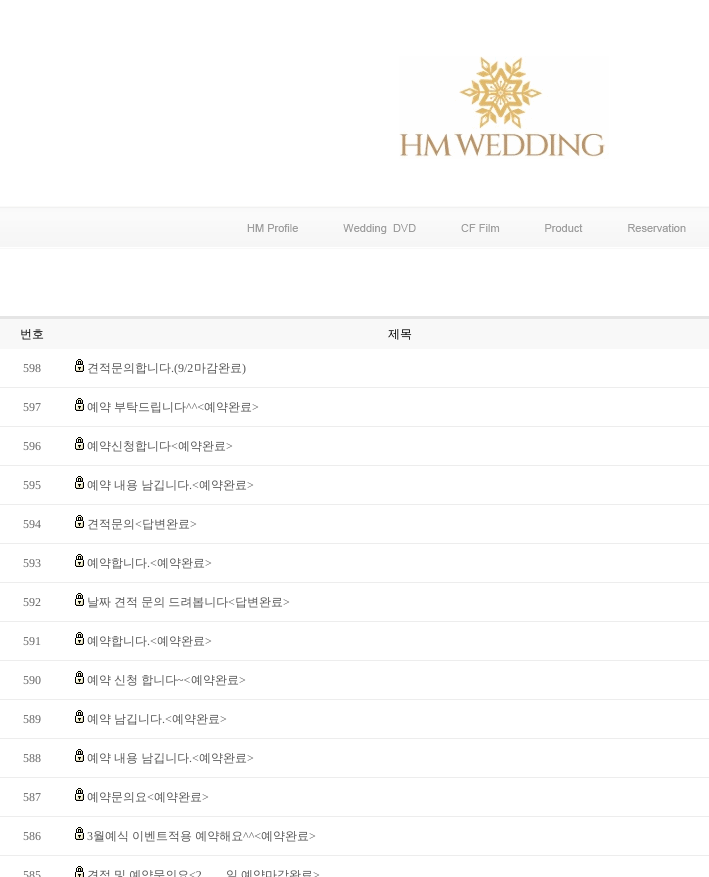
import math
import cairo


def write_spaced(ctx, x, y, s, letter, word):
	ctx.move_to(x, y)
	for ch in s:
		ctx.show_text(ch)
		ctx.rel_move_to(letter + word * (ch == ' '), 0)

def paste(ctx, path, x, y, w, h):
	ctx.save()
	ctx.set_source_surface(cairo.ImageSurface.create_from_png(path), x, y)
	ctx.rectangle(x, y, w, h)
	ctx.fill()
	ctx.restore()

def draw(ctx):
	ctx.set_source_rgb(1, 1, 1)
	ctx.paint()
	paste(ctx, 'media/1.png', 399, 56, 210, 103)
	paste(ctx, 'media/2.png', 0, 206, 709, 43)
	paste(ctx, 'media/3.png', 247, 224, 51, 8)
	paste(ctx, 'media/4.png', 343, 224, 73, 10)
	paste(ctx, 'media/5.png', 461, 224, 39, 8)
	paste(ctx, 'media/6.png', 545, 224, 38, 8)
	paste(ctx, 'media/7.png', 628, 224, 58, 8)
	ctx.set_source_rgb(0.898, 0.898, 0.898)
	ctx.rectangle(0, 316, 709, 3)
	ctx.fill()
	ctx.set_source_rgb(0.969, 0.969, 0.969)
	ctx.rectangle(0, 319, 709, 30)
	ctx.fill()
	ctx.select_font_face('WenQuanYi Zen Hei Medium')
	ctx.set_font_size(12)
	ctx.set_source_rgb(0, 0, 0)
	ctx.move_to(20, 338)
	ctx.show_text('번호')
	ctx.move_to(388, 338)
	ctx.show_text('제목')
	ctx.select_font_face('Liberation Serif')
	ctx.set_source_rgb(0.4, 0.4, 0.4)
	ctx.move_to(23, 372)
	ctx.show_text('598')
	ctx.set_source_rgb(0.929, 0.929, 0.929)
	ctx.rectangle(0, 387, 709, 1)
	ctx.fill()
	paste(ctx, 'media/8.png', 75, 359, 9, 13)
	ctx.select_font_face('WenQuanYi Zen Hei Medium')
	ctx.set_source_rgb(0.333, 0.333, 0.333)
	ctx.move_to(87, 372)
	ctx.show_text('견적문의합니다')
	ctx.select_font_face('Liberation Serif')
	ctx.move_to(171, 372)
	ctx.show_text('.(9/2')
	ctx.select_font_face('WenQuanYi Zen Hei Medium')
	ctx.move_to(194, 372)
	ctx.show_text('마감완료')
	ctx.select_font_face('Liberation Serif')
	ctx.move_to(242, 372)
	ctx.show_text(')')
	ctx.set_source_rgb(0.4, 0.4, 0.4)
	ctx.move_to(23, 411)
	ctx.show_text('597')
	ctx.set_source_rgb(0.929, 0.929, 0.929)
	ctx.rectangle(0, 426, 709, 1)
	ctx.fill()
	paste(ctx, 'media/8.png', 75, 398, 9, 13)
	ctx.select_font_face('WenQuanYi Zen Hei Medium')
	ctx.set_source_rgb(0.333, 0.333, 0.333)
	write_spaced(ctx, 87, 411, '예약 부탁드립니다', 0, -0.5)
	ctx.select_font_face('Liberation Serif')
	ctx.move_to(186, 411)
	ctx.show_text('^^<')
	ctx.select_font_face('WenQuanYi Zen Hei Medium')
	ctx.move_to(204, 411)
	ctx.show_text('예약완료')
	ctx.select_font_face('Liberation Serif')
	ctx.move_to(252, 411)
	ctx.show_text('>')
	ctx.set_source_rgb(0.4, 0.4, 0.4)
	ctx.move_to(23, 450)
	ctx.show_text('596')
	ctx.set_source_rgb(0.929, 0.929, 0.929)
	ctx.rectangle(0, 465, 709, 1)
	ctx.fill()
	paste(ctx, 'media/8.png', 75, 437, 9, 13)
	ctx.select_font_face('WenQuanYi Zen Hei Medium')
	ctx.set_source_rgb(0.333, 0.333, 0.333)
	ctx.move_to(87, 450)
	ctx.show_text('예약신청합니다')
	ctx.select_font_face('Liberation Serif')
	ctx.move_to(171, 450)
	ctx.show_text('<')
	ctx.select_font_face('WenQuanYi Zen Hei Medium')
	ctx.move_to(178, 450)
	ctx.show_text('예약완료')
	ctx.select_font_face('Liberation Serif')
	ctx.move_to(226, 450)
	ctx.show_text('>')
	ctx.set_source_rgb(0.4, 0.4, 0.4)
	ctx.move_to(23, 489)
	ctx.show_text('595')
	ctx.set_source_rgb(0.929, 0.929, 0.929)
	ctx.rectangle(0, 504, 709, 1)
	ctx.fill()
	paste(ctx, 'media/8.png', 75, 476, 9, 13)
	ctx.select_font_face('WenQuanYi Zen Hei Medium')
	ctx.set_source_rgb(0.333, 0.333, 0.333)
	write_spaced(ctx, 87, 489, '예약 내용 남깁니다', 0, -0.5)
	ctx.select_font_face('Liberation Serif')
	ctx.move_to(189, 489)
	ctx.show_text('.<')
	ctx.select_font_face('WenQuanYi Zen Hei Medium')
	ctx.move_to(199, 489)
	ctx.show_text('예약완료')
	ctx.select_font_face('Liberation Serif')
	ctx.move_to(247, 489)
	ctx.show_text('>')
	ctx.set_source_rgb(0.4, 0.4, 0.4)
	ctx.move_to(23, 528)
	ctx.show_text('594')
	ctx.set_source_rgb(0.929, 0.929, 0.929)
	ctx.rectangle(0, 543, 709, 1)
	ctx.fill()
	paste(ctx, 'media/8.png', 75, 515, 9, 13)
	ctx.select_font_face('WenQuanYi Zen Hei Medium')
	ctx.set_source_rgb(0.333, 0.333, 0.333)
	ctx.move_to(87, 528)
	ctx.show_text('견적문의')
	ctx.select_font_face('Liberation Serif')
	ctx.move_to(135, 528)
	ctx.show_text('<')
	ctx.select_font_face('WenQuanYi Zen Hei Medium')
	ctx.move_to(142, 528)
	ctx.show_text('답변완료')
	ctx.select_font_face('Liberation Serif')
	ctx.move_to(190, 528)
	ctx.show_text('>')
	ctx.set_source_rgb(0.4, 0.4, 0.4)
	ctx.move_to(23, 567)
	ctx.show_text('593')
	ctx.set_source_rgb(0.929, 0.929, 0.929)
	ctx.rectangle(0, 582, 709, 1)
	ctx.fill()
	paste(ctx, 'media/8.png', 75, 554, 9, 13)
	ctx.select_font_face('WenQuanYi Zen Hei Medium')
	ctx.set_source_rgb(0.333, 0.333, 0.333)
	ctx.move_to(87, 567)
	ctx.show_text('예약합니다')
	ctx.select_font_face('Liberation Serif')
	ctx.move_to(147, 567)
	ctx.show_text('.<')
	ctx.select_font_face('WenQuanYi Zen Hei Medium')
	ctx.move_to(157, 567)
	ctx.show_text('예약완료')
	ctx.select_font_face('Liberation Serif')
	ctx.move_to(205, 567)
	ctx.show_text('>')
	ctx.set_source_rgb(0.4, 0.4, 0.4)
	ctx.move_to(23, 606)
	ctx.show_text('592')
	ctx.set_source_rgb(0.929, 0.929, 0.929)
	ctx.rectangle(0, 621, 709, 1)
	ctx.fill()
	paste(ctx, 'media/8.png', 75, 593, 9, 13)
	ctx.select_font_face('WenQuanYi Zen Hei Medium')
	ctx.set_source_rgb(0.333, 0.333, 0.333)
	write_spaced(ctx, 87, 606, '날짜 견적 문의 드려봅니다', 0, -0.5)
	ctx.select_font_face('Liberation Serif')
	ctx.move_to(228, 606)
	ctx.show_text('<')
	ctx.select_font_face('WenQuanYi Zen Hei Medium')
	ctx.move_to(235, 606)
	ctx.show_text('답변완료')
	ctx.select_font_face('Liberation Serif')
	ctx.move_to(283, 606)
	ctx.show_text('>')
	ctx.set_source_rgb(0.4, 0.4, 0.4)
	ctx.move_to(23, 645)
	ctx.show_text('591')
	ctx.set_source_rgb(0.929, 0.929, 0.929)
	ctx.rectangle(0, 660, 709, 1)
	ctx.fill()
	paste(ctx, 'media/8.png', 75, 632, 9, 13)
	ctx.select_font_face('WenQuanYi Zen Hei Medium')
	ctx.set_source_rgb(0.333, 0.333, 0.333)
	ctx.move_to(87, 645)
	ctx.show_text('예약합니다')
	ctx.select_font_face('Liberation Serif')
	ctx.move_to(147, 645)
	ctx.show_text('.<')
	ctx.select_font_face('WenQuanYi Zen Hei Medium')
	ctx.move_to(157, 645)
	ctx.show_text('예약완료')
	ctx.select_font_face('Liberation Serif')
	ctx.move_to(205, 645)
	ctx.show_text('>')
	ctx.set_source_rgb(0.4, 0.4, 0.4)
	ctx.move_to(23, 684)
	ctx.show_text('590')
	ctx.set_source_rgb(0.929, 0.929, 0.929)
	ctx.rectangle(0, 699, 709, 1)
	ctx.fill()
	paste(ctx, 'media/8.png', 75, 671, 9, 13)
	ctx.select_font_face('WenQuanYi Zen Hei Medium')
	ctx.set_source_rgb(0.333, 0.333, 0.333)
	write_spaced(ctx, 87, 684, '예약 신청 합니다', 0, -0.5)
	ctx.select_font_face('Liberation Serif')
	ctx.move_to(177, 684)
	ctx.show_text('~<')
	ctx.select_font_face('WenQuanYi Zen Hei Medium')
	ctx.move_to(191, 684)
	ctx.show_text('예약완료')
	ctx.select_font_face('Liberation Serif')
	ctx.move_to(239, 684)
	ctx.show_text('>')
	ctx.set_source_rgb(0.4, 0.4, 0.4)
	ctx.move_to(23, 723)
	ctx.show_text('589')
	ctx.set_source_rgb(0.929, 0.929, 0.929)
	ctx.rectangle(0, 738, 709, 1)
	ctx.fill()
	paste(ctx, 'media/8.png', 75, 710, 9, 13)
	ctx.select_font_face('WenQuanYi Zen Hei Medium')
	ctx.set_source_rgb(0.333, 0.333, 0.333)
	ctx.move_to(87, 723)
	ctx.show_text('예약')
	ctx.move_to(114, 723)
	ctx.show_text('남깁니다')
	ctx.select_font_face('Liberation Serif')
	ctx.move_to(162, 723)
	ctx.show_text('.<')
	ctx.select_font_face('WenQuanYi Zen Hei Medium')
	ctx.move_to(172, 723)
	ctx.show_text('예약완료')
	ctx.select_font_face('Liberation Serif')
	ctx.move_to(220, 723)
	ctx.show_text('>')
	ctx.set_source_rgb(0.4, 0.4, 0.4)
	ctx.move_to(23, 762)
	ctx.show_text('588')
	ctx.set_source_rgb(0.929, 0.929, 0.929)
	ctx.rectangle(0, 777, 709, 1)
	ctx.fill()
	paste(ctx, 'media/8.png', 75, 749, 9, 13)
	ctx.select_font_face('WenQuanYi Zen Hei Medium')
	ctx.set_source_rgb(0.333, 0.333, 0.333)
	write_spaced(ctx, 87, 762, '예약 내용 남깁니다', 0, -0.5)
	ctx.select_font_face('Liberation Serif')
	ctx.move_to(189, 762)
	ctx.show_text('.<')
	ctx.select_font_face('WenQuanYi Zen Hei Medium')
	ctx.move_to(199, 762)
	ctx.show_text('예약완료')
	ctx.select_font_face('Liberation Serif')
	ctx.move_to(247, 762)
	ctx.show_text('>')
	ctx.set_source_rgb(0.4, 0.4, 0.4)
	ctx.move_to(23, 801)
	ctx.show_text('587')
	ctx.set_source_rgb(0.929, 0.929, 0.929)
	ctx.rectangle(0, 816, 709, 1)
	ctx.fill()
	paste(ctx, 'media/8.png', 75, 788, 9, 13)
	ctx.select_font_face('WenQuanYi Zen Hei Medium')
	ctx.set_source_rgb(0.333, 0.333, 0.333)
	ctx.move_to(87, 801)
	ctx.show_text('예약문의요')
	ctx.select_font_face('Liberation Serif')
	ctx.move_to(147, 801)
	ctx.show_text('<')
	ctx.select_font_face('WenQuanYi Zen Hei Medium')
	ctx.move_to(154, 801)
	ctx.show_text('예약완료')
	ctx.select_font_face('Liberation Serif')
	ctx.move_to(202, 801)
	ctx.show_text('>')
	ctx.set_source_rgb(0.4, 0.4, 0.4)
	ctx.move_to(23, 840)
	ctx.show_text('586')
	ctx.set_source_rgb(0.929, 0.929, 0.929)
	ctx.rectangle(0, 855, 709, 1)
	ctx.fill()
	paste(ctx, 'media/8.png', 75, 827, 9, 13)
	ctx.set_source_rgb(0.333, 0.333, 0.333)
	ctx.move_to(87, 840)
	ctx.show_text('3')
	ctx.select_font_face('WenQuanYi Zen Hei Medium')
	write_spaced(ctx, 93, 840, '월예식 이벤트적용 예약해요', 0, -0.5)
	ctx.select_font_face('Liberation Serif')
	ctx.move_to(243, 840)
	ctx.show_text('^^<')
	ctx.select_font_face('WenQuanYi Zen Hei Medium')
	ctx.move_to(261, 840)
	ctx.show_text('예약완료')
	ctx.select_font_face('Liberation Serif')
	ctx.move_to(309, 840)
	ctx.show_text('>')
	ctx.set_source_rgb(0.4, 0.4, 0.4)
	ctx.move_to(23, 879)
	ctx.show_text('585')
	paste(ctx, 'media/9.png', 75, 866, 9, 11)
	ctx.select_font_face('WenQuanYi Zen Hei Medium')
	ctx.set_source_rgb(0.333, 0.333, 0.333)
	write_spaced(ctx, 87, 879, '견적 및 예약문의요', 0, -0.5)
	ctx.select_font_face('Liberation Serif')
	ctx.move_to(189, 879)
	ctx.show_text('<2')
	ctx.select_font_face('WenQuanYi Zen Hei Medium')
	write_spaced(ctx, 226, 879, '일 예약마감완료', 0, -0.5)
	ctx.select_font_face('Liberation Serif')
	ctx.move_to(313, 879)
	ctx.show_text('>')


surface = cairo.ImageSurface(cairo.FORMAT_RGB24, 709, 877)
ctx = cairo.Context(surface)
options = cairo.FontOptions()
options.set_hint_metrics(cairo.HINT_METRICS_OFF)
options.set_hint_style(cairo.HINT_STYLE_NONE)
ctx.set_font_options(options)
ctx.set_miter_limit(4)
draw(ctx)
surface.write_to_png('image.png')
